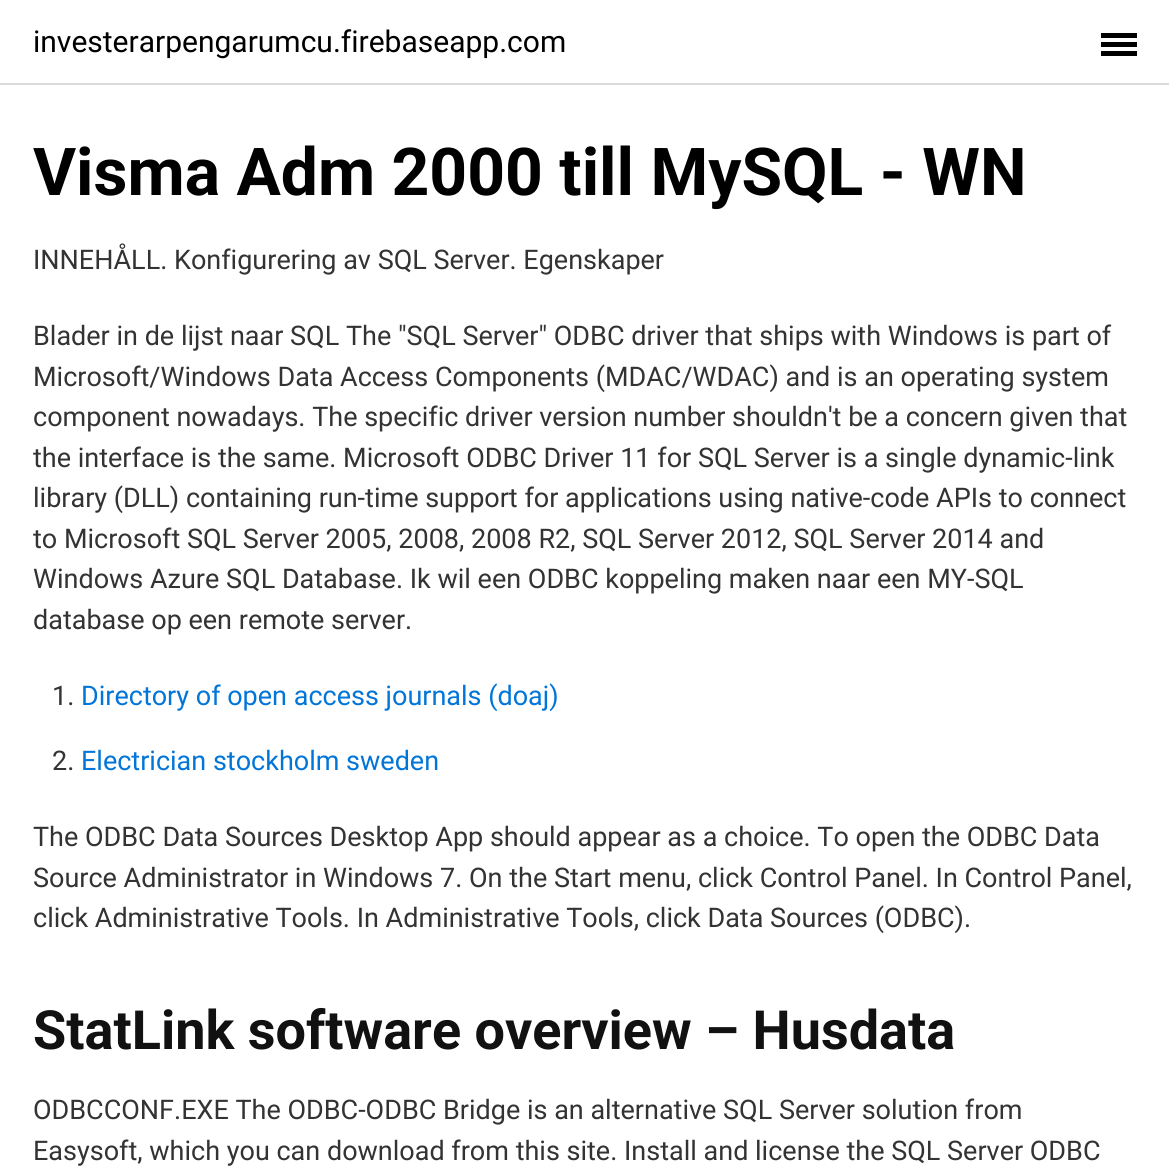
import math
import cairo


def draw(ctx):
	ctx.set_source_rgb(1, 1, 1)
	ctx.paint()
	ctx.set_source_rgb(0.859, 0.859, 0.859)
	ctx.rectangle(0, 83, 1169, 2)
	ctx.fill()
	ctx.select_font_face('Roboto')
	ctx.set_font_size(30)
	ctx.set_source_rgb(0, 0, 0)
	ctx.move_to(33, 52)
	ctx.show_text('investerarpengarumcu.firebaseapp.com')
	ctx.rectangle(1101, 42, 36, 5)
	ctx.rectangle(1101, 33, 36, 5)
	ctx.rectangle(1101, 51, 36, 5)
	ctx.fill()
	ctx.select_font_face('Roboto', cairo.FONT_SLANT_NORMAL, cairo.FONT_WEIGHT_BOLD)
	ctx.set_font_size(66)
	ctx.move_to(33, 195)
	ctx.show_text('Visma Adm 2000 till MySQL - WN')
	ctx.select_font_face('Roboto')
	ctx.set_font_size(27)
	ctx.set_source_rgb(0.2, 0.2, 0.2)
	for x, y, s in [
		(33, 269, 'INNEHÅLL. Konfigurering av SQL Server. Egenskaper'),
		(33, 345, 'Blader in de lijst naar SQL The "SQL Server" ODBC driver that ships with Windows is part of'),
		(33, 386, 'Microsoft/Windows Data Access Components (MDAC/WDAC) and is an operating system'),
		(33, 426, 'component nowadays. The specific driver version number shouldn\'t be a concern given that'),
		(33, 467, 'the interface is the same. Microsoft ODBC Driver 11 for SQL Server is a single dynamic-link'),
		(33, 507, 'library (DLL) containing run-time support for applications using native-code APIs to connect'),
		(33, 548, 'to Microsoft SQL Server 2005, 2008, 2008 R2, SQL Server 2012, SQL Server 2014 and'),
		(33, 588, 'Windows Azure SQL Database. Ik wil een ODBC koppeling maken naar een MY-SQL'),
		(33, 629, 'database op een remote server.'),
		(52, 705, '1.'),
	]:
		ctx.move_to(x, y)
		ctx.show_text(s)
	ctx.set_source_rgb(0.008, 0.459, 0.847)
	ctx.move_to(81, 705)
	ctx.show_text('Directory of open access journals (doaj)')
	ctx.set_source_rgb(0.2, 0.2, 0.2)
	ctx.move_to(52, 770)
	ctx.show_text('2.')
	ctx.set_source_rgb(0.008, 0.459, 0.847)
	ctx.move_to(81, 770)
	ctx.show_text('Electrician stockholm sweden')
	ctx.set_source_rgb(0.2, 0.2, 0.2)
	for x, y, s in [
		(33, 846, 'The ODBC Data Sources Desktop App should appear as a choice. To open the ODBC Data'),
		(33, 887, 'Source Administrator in Windows 7. On the Start menu, click Control Panel. In Control Panel,'),
		(33, 927, 'click Administrative Tools. In Administrative Tools, click Data Sources (ODBC).'),
	]:
		ctx.move_to(x, y)
		ctx.show_text(s)
	ctx.select_font_face('Roboto', cairo.FONT_SLANT_NORMAL, cairo.FONT_WEIGHT_BOLD)
	ctx.set_font_size(54)
	ctx.set_source_rgb(0.067, 0.067, 0.067)
	ctx.move_to(33, 1049)
	ctx.show_text('StatLink software overview – Husdata')
	ctx.select_font_face('Roboto')
	ctx.set_font_size(27)
	ctx.set_source_rgb(0.2, 0.2, 0.2)
	ctx.move_to(33, 1119)
	ctx.show_text('ODBCCONF.EXE The ODBC-ODBC Bridge is an alternative SQL Server solution from')
	ctx.move_to(33, 1160)
	ctx.show_text('Easysoft, which you can download from this site. Install and license the SQL Server ODBC')


surface = cairo.ImageSurface(cairo.FORMAT_RGB24, 1169, 1173)
ctx = cairo.Context(surface)
options = cairo.FontOptions()
options.set_hint_metrics(cairo.HINT_METRICS_OFF)
options.set_hint_style(cairo.HINT_STYLE_NONE)
ctx.set_font_options(options)
ctx.set_miter_limit(4)
draw(ctx)
surface.write_to_png('image.png')
